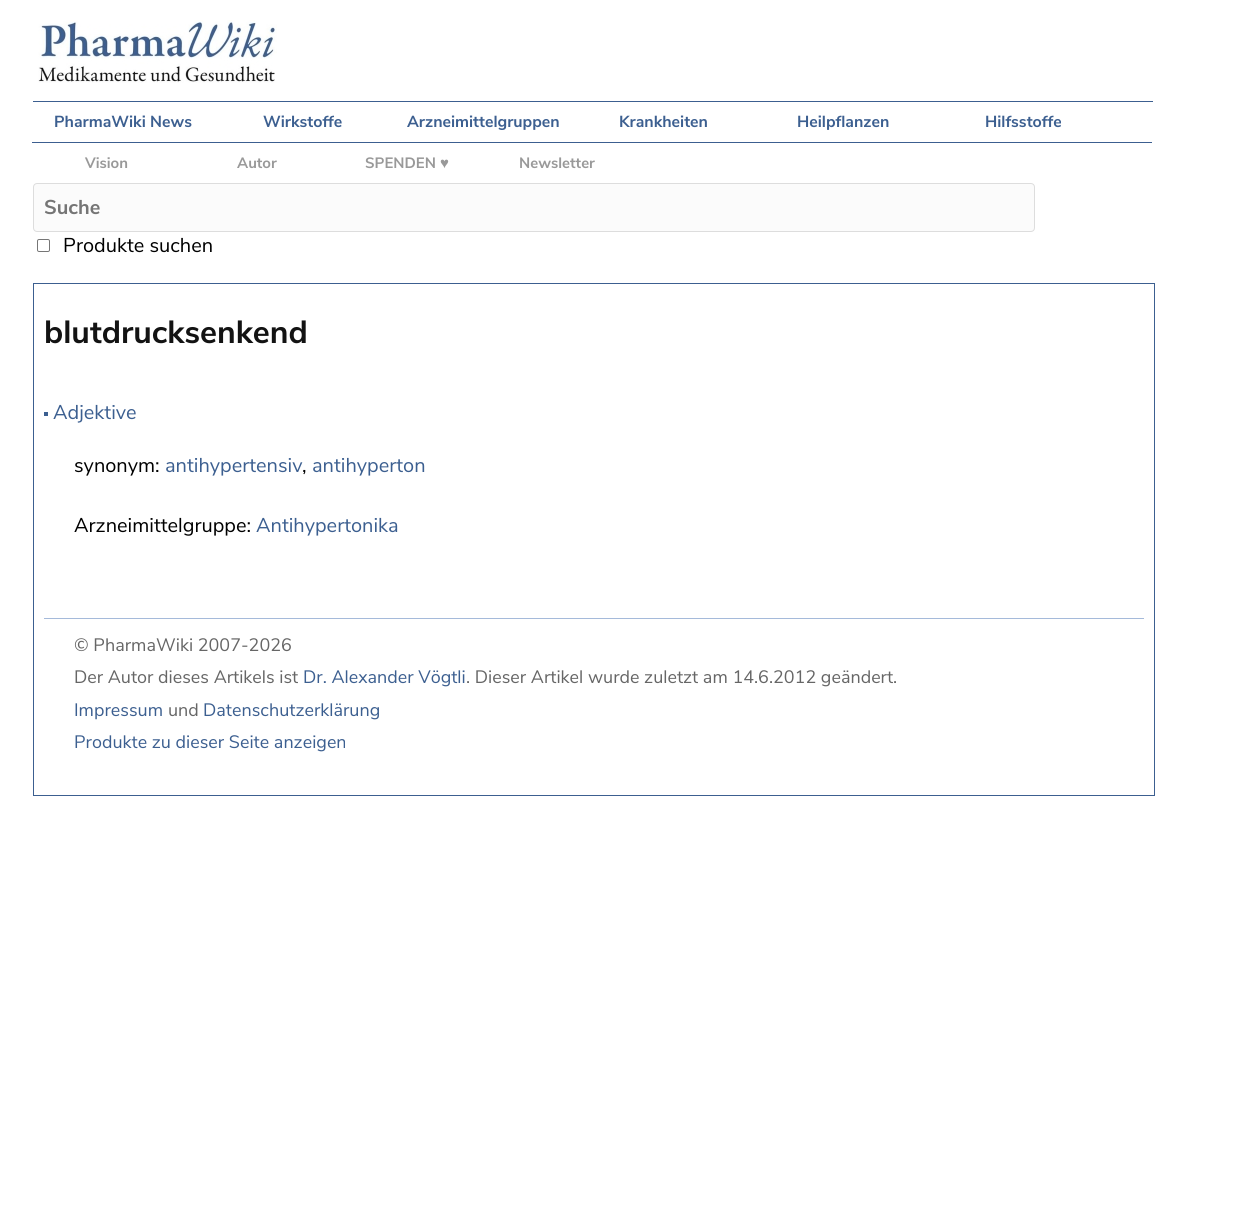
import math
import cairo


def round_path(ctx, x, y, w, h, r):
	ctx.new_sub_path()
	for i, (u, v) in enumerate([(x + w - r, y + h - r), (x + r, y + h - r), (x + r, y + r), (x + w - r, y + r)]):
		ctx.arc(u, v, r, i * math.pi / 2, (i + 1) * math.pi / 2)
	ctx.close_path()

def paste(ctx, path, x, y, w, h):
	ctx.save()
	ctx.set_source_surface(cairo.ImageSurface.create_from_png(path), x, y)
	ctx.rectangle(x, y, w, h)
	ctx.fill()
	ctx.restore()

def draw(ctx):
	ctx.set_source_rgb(1, 1, 1)
	ctx.paint()
	paste(ctx, 'media/1.png', 38, 20, 239, 63)
	ctx.set_source_rgb(0.235, 0.373, 0.565)
	ctx.rectangle(33, 101, 1120, 1)
	ctx.fill()
	ctx.select_font_face('Nunito Sans', cairo.FONT_SLANT_NORMAL, cairo.FONT_WEIGHT_BOLD)
	ctx.set_font_size(16)
	for x, y, s in [
		(54, 127, 'PharmaWiki News'),
		(263, 127, 'Wirkstoffe'),
		(407, 127, 'Arzneimittelgruppen'),
		(619, 127, 'Krankheiten'),
		(797, 127, 'Heilpflanzen'),
		(985, 127, 'Hilfsstoffe'),
	]:
		ctx.move_to(x, y)
		ctx.show_text(s)
	ctx.rectangle(32, 142, 1120, 1)
	ctx.fill()
	ctx.set_font_size(15)
	ctx.set_source_rgb(0.6, 0.6, 0.6)
	for x, y, s in [
		(85, 168, 'Vision'),
		(237, 168, 'Autor'),
		(365, 168, 'SPENDEN'),
	]:
		ctx.move_to(x, y)
		ctx.show_text(s)
	ctx.select_font_face('Liberation Serif', cairo.FONT_SLANT_NORMAL, cairo.FONT_WEIGHT_BOLD)
	ctx.move_to(440, 168)
	ctx.show_text('♥')
	ctx.select_font_face('Nunito Sans', cairo.FONT_SLANT_NORMAL, cairo.FONT_WEIGHT_BOLD)
	ctx.move_to(519, 168)
	ctx.show_text('Newsletter')
	ctx.set_source_rgb(0.984, 0.984, 0.984)
	round_path(ctx, 33.5, 183.5, 1001, 48, 3.5)
	ctx.fill_preserve()
	ctx.set_source_rgb(0.867, 0.867, 0.867)
	ctx.set_line_width(1)
	ctx.stroke()
	ctx.set_font_size(20)
	ctx.set_source_rgb(0.459, 0.459, 0.459)
	ctx.move_to(44, 214)
	ctx.show_text('Suche')
	round_path(ctx, 37.5, 239.5, 12, 12, 1.5)
	ctx.set_source_rgb(0.463, 0.463, 0.463)
	ctx.stroke()
	ctx.select_font_face('Nunito Sans')
	ctx.set_source_rgb(0, 0, 0)
	ctx.move_to(63, 252)
	ctx.show_text('Produkte suchen')
	ctx.rectangle(33.5, 283.5, 1121, 512)
	ctx.set_source_rgb(0.235, 0.373, 0.565)
	ctx.stroke()
	ctx.select_font_face('Nunito Sans', cairo.FONT_SLANT_NORMAL, cairo.FONT_WEIGHT_BOLD)
	ctx.set_font_size(32)
	ctx.set_source_rgb(0.078, 0.078, 0.078)
	ctx.move_to(44, 343)
	ctx.show_text('blutdrucksenkend')
	ctx.set_source_rgb(0.235, 0.373, 0.565)
	ctx.rectangle(44, 412, 4, 4)
	ctx.fill()
	ctx.select_font_face('Nunito Sans')
	ctx.set_font_size(20)
	ctx.move_to(53, 419)
	ctx.show_text('Adjektive')
	ctx.set_source_rgb(0, 0, 0)
	ctx.move_to(74, 472)
	ctx.show_text('synonym:')
	ctx.set_source_rgb(0.235, 0.373, 0.565)
	ctx.move_to(165, 472)
	ctx.show_text('antihypertensiv')
	ctx.set_source_rgb(0, 0, 0)
	ctx.move_to(302, 472)
	ctx.show_text(',')
	ctx.set_source_rgb(0.235, 0.373, 0.565)
	ctx.move_to(312, 472)
	ctx.show_text('antihyperton')
	ctx.set_source_rgb(0, 0, 0)
	ctx.move_to(74, 532)
	ctx.show_text('Arzneimittelgruppe:')
	ctx.set_source_rgb(0.235, 0.373, 0.565)
	ctx.move_to(256, 532)
	ctx.show_text('Antihypertonika')
	ctx.set_source_rgb(0.647, 0.729, 0.855)
	ctx.rectangle(44, 618, 1100, 1)
	ctx.fill()
	ctx.set_font_size(18)
	ctx.set_source_rgb(0.4, 0.4, 0.4)
	ctx.move_to(74, 651)
	ctx.show_text('© PharmaWiki 2007-2026')
	ctx.move_to(74, 683)
	ctx.show_text('Der Autor dieses Artikels ist')
	ctx.set_source_rgb(0.235, 0.373, 0.565)
	ctx.move_to(303, 683)
	ctx.show_text('Dr. Alexander Vögtli')
	ctx.set_source_rgb(0.4, 0.4, 0.4)
	ctx.move_to(466, 683)
	ctx.show_text('. Dieser Artikel wurde zuletzt am 14.6.2012 geändert.')
	ctx.set_source_rgb(0.235, 0.373, 0.565)
	ctx.move_to(74, 716)
	ctx.show_text('Impressum')
	ctx.set_source_rgb(0.4, 0.4, 0.4)
	ctx.move_to(168, 716)
	ctx.show_text('und')
	ctx.set_source_rgb(0.235, 0.373, 0.565)
	ctx.move_to(203, 716)
	ctx.show_text('Datenschutzerklärung')
	ctx.move_to(74, 748)
	ctx.show_text('Produkte zu dieser Seite anzeigen')


surface = cairo.ImageSurface(cairo.FORMAT_RGB24, 1236, 1231)
ctx = cairo.Context(surface)
options = cairo.FontOptions()
options.set_hint_metrics(cairo.HINT_METRICS_OFF)
options.set_hint_style(cairo.HINT_STYLE_NONE)
ctx.set_font_options(options)
ctx.set_miter_limit(4)
draw(ctx)
surface.write_to_png('image.png')
